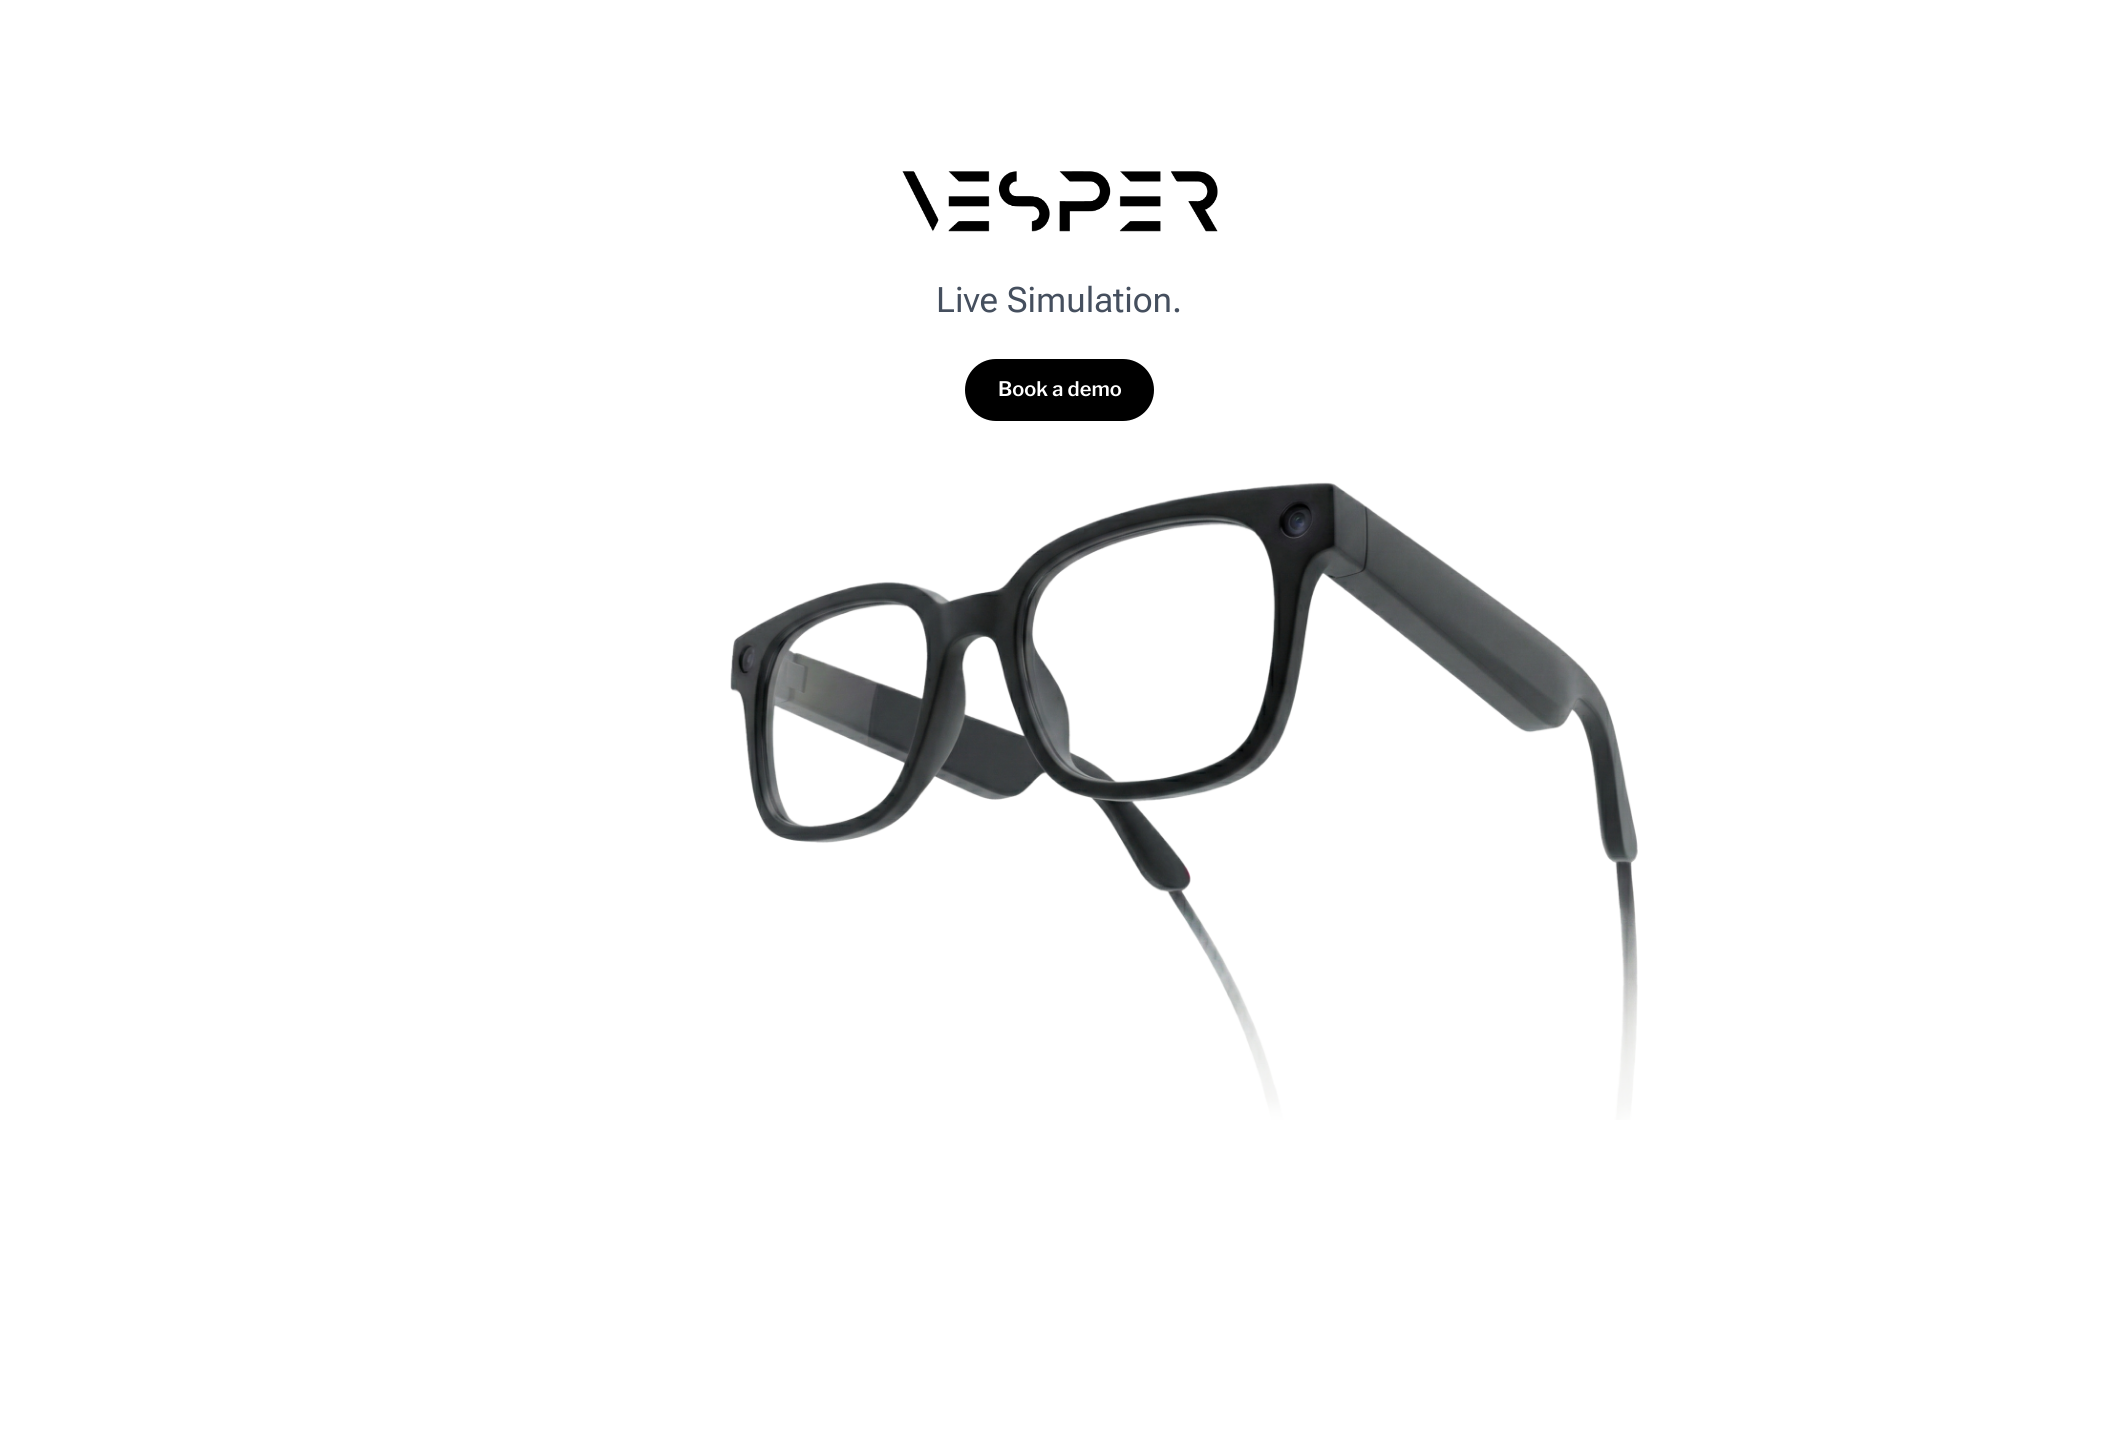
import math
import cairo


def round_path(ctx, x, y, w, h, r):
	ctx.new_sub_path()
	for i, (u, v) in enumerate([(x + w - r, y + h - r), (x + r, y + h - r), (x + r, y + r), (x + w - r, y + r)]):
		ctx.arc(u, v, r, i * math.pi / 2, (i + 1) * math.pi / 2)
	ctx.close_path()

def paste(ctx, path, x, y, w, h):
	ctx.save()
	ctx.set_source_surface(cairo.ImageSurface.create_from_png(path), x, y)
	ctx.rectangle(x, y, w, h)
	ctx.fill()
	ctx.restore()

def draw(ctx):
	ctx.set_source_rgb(1, 1, 1)
	ctx.paint()
	paste(ctx, 'media/1.png', 902, 171, 316, 61)
	ctx.select_font_face('Roboto Flex')
	ctx.set_font_size(35)
	ctx.set_source_rgb(0.271, 0.31, 0.369)
	ctx.move_to(936, 312)
	ctx.show_text('Live Simulation.')
	ctx.set_source_rgb(0, 0, 0)
	round_path(ctx, 965, 359, 189, 62, 31)
	ctx.fill()
	ctx.select_font_face('Libre Franklin SemiBold')
	ctx.set_font_size(20)
	ctx.set_source_rgb(1, 1, 1)
	ctx.move_to(998, 396)
	ctx.show_text('Book a demo')
	paste(ctx, 'media/2.png', 730, 482, 908, 638)


surface = cairo.ImageSurface(cairo.FORMAT_RGB24, 2118, 1448)
ctx = cairo.Context(surface)
options = cairo.FontOptions()
options.set_hint_metrics(cairo.HINT_METRICS_OFF)
options.set_hint_style(cairo.HINT_STYLE_NONE)
ctx.set_font_options(options)
ctx.set_miter_limit(4)
draw(ctx)
surface.write_to_png('image.png')
